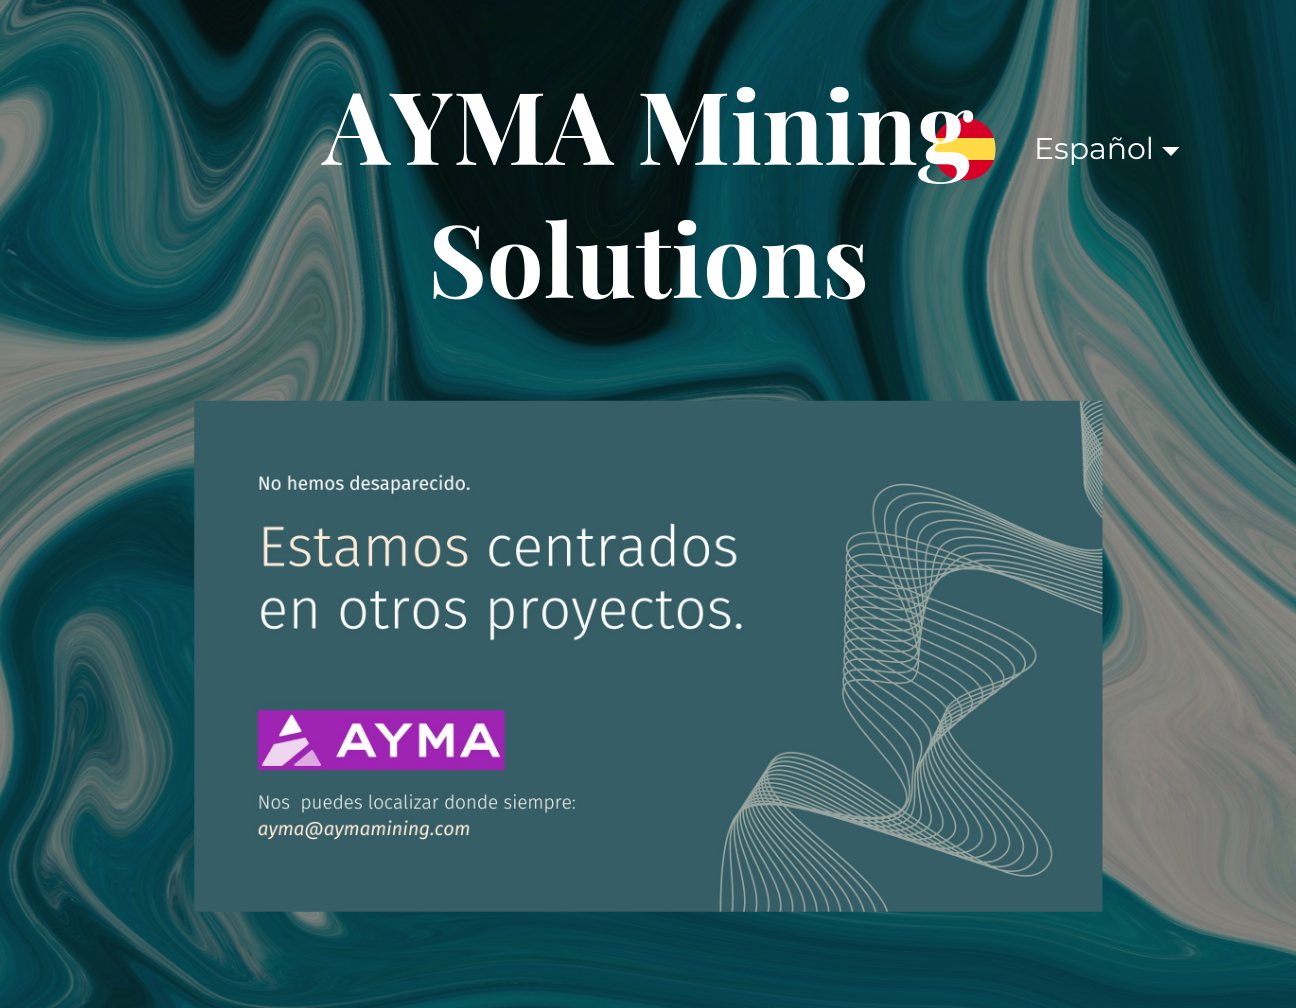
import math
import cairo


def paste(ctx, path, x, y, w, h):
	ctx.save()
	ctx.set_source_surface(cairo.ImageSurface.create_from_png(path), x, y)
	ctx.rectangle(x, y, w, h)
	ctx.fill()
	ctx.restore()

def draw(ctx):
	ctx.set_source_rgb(1, 1, 1)
	ctx.paint()
	paste(ctx, 'media/1.png', 0, 0, 1296, 1008)
	ctx.set_source_rgb(1, 0.855, 0.267)
	ctx.new_path()
	ctx.move_to(933, 149)
	ctx.curve_to(933, 153, 933, 156, 935, 160)
	ctx.line_to(964, 162)
	ctx.line_to(994, 160)
	ctx.curve_to(996, 153, 996, 145, 994, 138)
	ctx.line_to(964, 135)
	ctx.line_to(935, 138)
	ctx.curve_to(933, 141, 933, 145, 933, 149)
	ctx.close_path()
	ctx.fill()
	ctx.save()
	ctx.rectangle(933, 117, 63, 63)
	ctx.clip()
	ctx.set_source_rgb(0.847, 0, 0.153)
	ctx.new_path()
	ctx.move_to(994, 138)
	ctx.curve_to(984, 111, 945, 111, 935, 138)
	ctx.close_path()
	ctx.move_to(935, 160)
	ctx.curve_to(945, 187, 984, 187, 994, 160)
	ctx.close_path()
	ctx.fill()
	ctx.restore()
	ctx.select_font_face('Playfair Display', cairo.FONT_SLANT_NORMAL, cairo.FONT_WEIGHT_BOLD)
	ctx.set_font_size(100.75)
	ctx.set_source_rgb(1, 1, 1)
	ctx.move_to(323, 165)
	ctx.show_text('AYMA Mining')
	ctx.move_to(428, 298)
	ctx.show_text('Solutions')
	paste(ctx, 'media/2.png', 194, 400, 909, 512)
	ctx.select_font_face('Montserrat')
	ctx.set_font_size(30)
	ctx.move_to(1034, 159)
	ctx.show_text('Español')
	ctx.new_path()
	ctx.move_to(1162, 147)
	ctx.line_to(1179.5, 147)
	ctx.line_to(1171, 156)
	ctx.close_path()
	ctx.fill()


surface = cairo.ImageSurface(cairo.FORMAT_RGB24, 1296, 1008)
ctx = cairo.Context(surface)
options = cairo.FontOptions()
options.set_hint_metrics(cairo.HINT_METRICS_OFF)
options.set_hint_style(cairo.HINT_STYLE_NONE)
ctx.set_font_options(options)
ctx.set_miter_limit(4)
draw(ctx)
surface.write_to_png('image.png')
